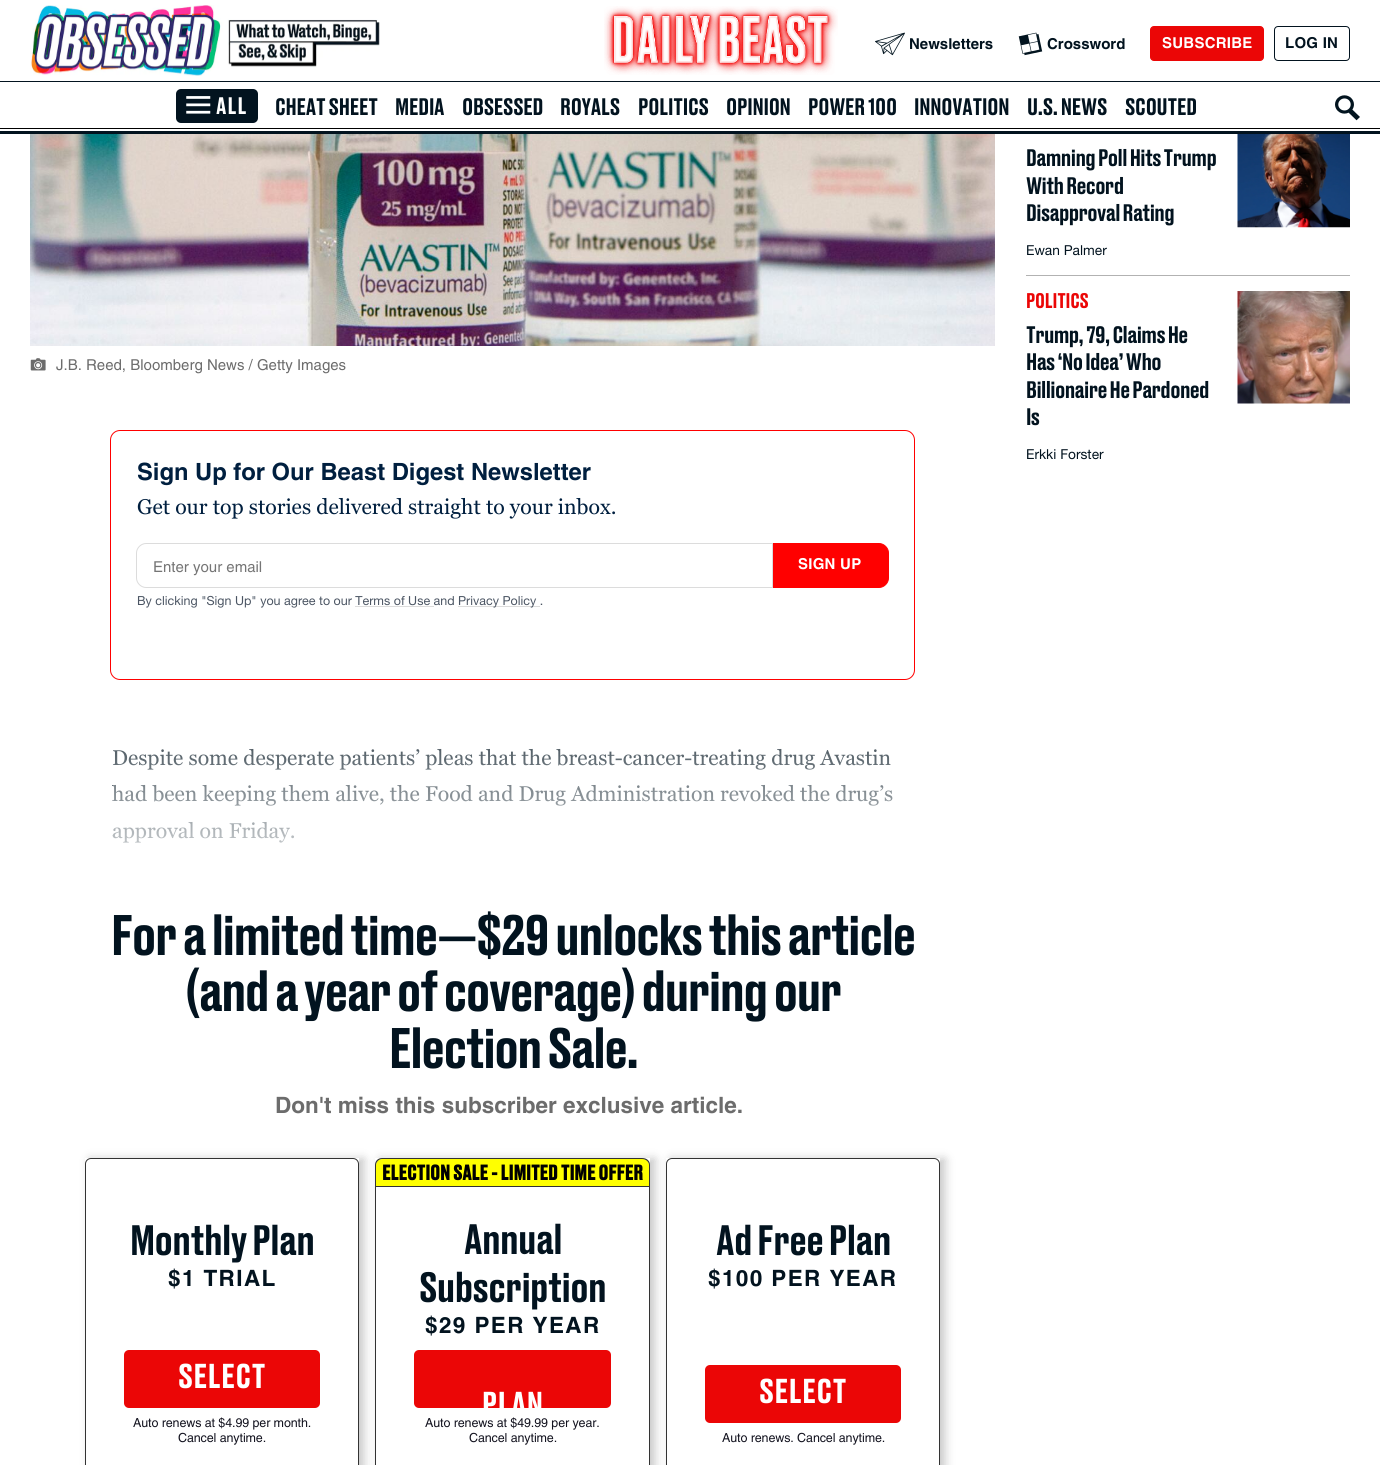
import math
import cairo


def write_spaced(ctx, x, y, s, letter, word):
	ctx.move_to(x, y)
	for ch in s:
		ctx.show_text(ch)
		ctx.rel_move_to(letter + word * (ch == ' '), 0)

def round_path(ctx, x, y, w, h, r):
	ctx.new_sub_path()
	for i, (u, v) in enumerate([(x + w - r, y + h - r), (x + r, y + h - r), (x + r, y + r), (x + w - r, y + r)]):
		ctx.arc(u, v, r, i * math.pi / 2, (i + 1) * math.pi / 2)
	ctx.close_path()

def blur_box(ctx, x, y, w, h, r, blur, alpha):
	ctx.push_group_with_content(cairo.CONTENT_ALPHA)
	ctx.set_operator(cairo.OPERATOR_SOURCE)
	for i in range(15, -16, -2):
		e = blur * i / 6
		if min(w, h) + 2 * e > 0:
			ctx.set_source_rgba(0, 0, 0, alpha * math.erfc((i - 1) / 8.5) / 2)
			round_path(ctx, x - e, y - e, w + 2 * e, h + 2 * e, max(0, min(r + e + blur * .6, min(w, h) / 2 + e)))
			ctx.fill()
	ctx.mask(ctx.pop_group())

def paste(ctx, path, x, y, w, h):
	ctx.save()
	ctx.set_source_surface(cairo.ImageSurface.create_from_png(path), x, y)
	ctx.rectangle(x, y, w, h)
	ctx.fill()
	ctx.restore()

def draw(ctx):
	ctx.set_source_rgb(1, 1, 1)
	ctx.paint()
	ctx.set_source_rgb(0.008, 0.078, 0.122)
	ctx.rectangle(0, 131, 1380, 3)
	ctx.fill()
	paste(ctx, 'media/1.png', 30, 5, 350, 71)
	paste(ctx, 'media/2.png', 604, 6, 234, 69)
	paste(ctx, 'media/3.png', 875, 32, 30, 24)
	ctx.select_font_face('Helvetica', cairo.FONT_SLANT_NORMAL, cairo.FONT_WEIGHT_BOLD)
	ctx.set_font_size(15)
	ctx.move_to(909, 49)
	ctx.show_text('Newsletters')
	paste(ctx, 'media/4.png', 1018, 32, 25, 24)
	ctx.move_to(1047, 49)
	ctx.show_text('Crossword')
	ctx.set_source_rgb(0.918, 0.024, 0.024)
	round_path(ctx, 1150.5, 26.5, 113, 34, 3.5)
	ctx.fill_preserve()
	ctx.set_line_width(1)
	ctx.stroke()
	ctx.set_source_rgb(1, 1, 1)
	write_spaced(ctx, 1162, 48, 'SUBSCRIBE', 0.25, 0)
	round_path(ctx, 1274.5, 26.5, 75, 34, 3.5)
	ctx.set_source_rgb(0.008, 0.078, 0.122)
	ctx.stroke()
	write_spaced(ctx, 1285, 48, 'LOG IN', 0.25, 0)
	ctx.rectangle(0, 81, 1380, 1)
	ctx.fill()
	round_path(ctx, 176, 89, 82, 34, 5)
	ctx.fill()
	paste(ctx, 'media/5.png', 186, 96, 25, 18)
	ctx.select_font_face('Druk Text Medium')
	ctx.set_font_size(22.5)
	ctx.set_source_rgb(1, 1, 1)
	write_spaced(ctx, 216, 114, 'ALL', 1, 0)
	ctx.set_source_rgb(0.008, 0.078, 0.122)
	for x, y, s in [
		(275, 115, 'CHEAT SHEET'),
		(395, 115, 'MEDIA'),
		(462, 115, 'OBSESSED'),
		(560, 115, 'ROYALS'),
		(638, 115, 'POLITICS'),
		(726, 115, 'OPINION'),
		(808, 115, 'POWER 100'),
		(914, 115, 'INNOVATION'),
		(1027, 115, 'U.S. NEWS'),
		(1125, 115, 'SCOUTED'),
	]:
		write_spaced(ctx, x, y, s, -0.25, 0)
	paste(ctx, 'media/6.png', 1335, 95, 25, 26)
	ctx.set_source_rgb(0, 0, 0)
	ctx.rectangle(0, 128, 1380, 1)
	ctx.fill()
	ctx.set_source_rgb(0.698, 0.698, 0.698)
	ctx.rectangle(1026, 275, 324, 1)
	ctx.fill()
	ctx.set_source_rgb(0.008, 0.078, 0.122)
	for x, y, s in [
		(1026, 166, 'Damning Poll Hits Trump'),
		(1026, 194, 'With Record'),
		(1026, 221, 'Disapproval Rating'),
	]:
		write_spaced(ctx, x, y, s, -0.6, 0)
	ctx.select_font_face('Helvetica Neue')
	ctx.set_font_size(13.75)
	ctx.move_to(1026, 255)
	ctx.show_text('Ewan Palmer')
	paste(ctx, 'media/7.png', 1237, 134, 113, 94)
	ctx.select_font_face('Druk Text Medium')
	ctx.set_font_size(20)
	ctx.set_source_rgb(0.918, 0.024, 0.024)
	write_spaced(ctx, 1026, 308, 'POLITICS', -0.25, 0)
	ctx.set_font_size(22.5)
	ctx.set_source_rgb(0.008, 0.078, 0.122)
	for x, y, s in [
		(1026, 343, 'Trump, 79, Claims He'),
		(1026, 370, 'Has ‘No Idea’ Who'),
		(1026, 398, 'Billionaire He Pardoned'),
		(1026, 425, 'Is'),
	]:
		write_spaced(ctx, x, y, s, -0.6, 0)
	ctx.select_font_face('Helvetica Neue')
	ctx.set_font_size(13.75)
	ctx.move_to(1026, 459)
	ctx.show_text('Erkki Forster')
	paste(ctx, 'media/8.png', 1237, 291, 113, 113)
	paste(ctx, 'media/9.png', 30, 134, 965, 212)
	paste(ctx, 'media/10.png', 30, 358, 16, 13)
	ctx.select_font_face('Helvetica')
	ctx.set_font_size(15)
	ctx.set_source_rgb(0.424, 0.424, 0.424)
	ctx.move_to(56, 370)
	ctx.show_text('J.B. Reed, Bloomberg News / Getty Images')
	round_path(ctx, 110.5, 430.5, 804, 249, 9.5)
	ctx.set_source_rgb(1, 0, 0)
	ctx.stroke()
	ctx.select_font_face('Helvetica', cairo.FONT_SLANT_NORMAL, cairo.FONT_WEIGHT_BOLD)
	ctx.set_font_size(23.75)
	ctx.set_source_rgb(0, 0.122, 0.247)
	ctx.move_to(137, 480)
	ctx.show_text('Sign Up for Our Beast Digest Newsletter')
	ctx.select_font_face('Georgia')
	ctx.set_font_size(21.25)
	ctx.move_to(137, 514)
	ctx.show_text('Get our top stories delivered straight to your inbox.')
	ctx.new_path()
	ctx.move_to(146, 543.5)
	ctx.line_to(772.5, 543.5)
	ctx.line_to(772.5, 587.5)
	ctx.line_to(146, 587.5)
	ctx.curve_to(141, 587.5, 136.5, 583, 136.5, 578)
	ctx.line_to(136.5, 553)
	ctx.curve_to(136.5, 548, 141, 543.5, 146, 543.5)
	ctx.close_path()
	ctx.set_source_rgb(0.863, 0.863, 0.863)
	ctx.stroke()
	ctx.select_font_face('Helvetica')
	ctx.set_font_size(15)
	ctx.set_source_rgb(0.459, 0.459, 0.459)
	ctx.move_to(153, 572)
	ctx.show_text('Enter your email')
	ctx.set_source_rgb(1, 0, 0)
	ctx.new_path()
	ctx.move_to(773.5, 543.5)
	ctx.line_to(879, 543.5)
	ctx.curve_to(884, 543.5, 888.5, 548, 888.5, 553)
	ctx.line_to(888.5, 578)
	ctx.curve_to(888.5, 583, 884, 587.5, 879, 587.5)
	ctx.line_to(773.5, 587.5)
	ctx.close_path()
	ctx.fill_preserve()
	ctx.stroke()
	ctx.select_font_face('Helvetica', cairo.FONT_SLANT_NORMAL, cairo.FONT_WEIGHT_BOLD)
	ctx.set_source_rgb(1, 1, 1)
	write_spaced(ctx, 798, 569, 'SIGN UP', 0.25, 0)
	ctx.select_font_face('Helvetica Neue')
	ctx.set_font_size(12.5)
	ctx.set_source_rgb(0.294, 0.333, 0.388)
	ctx.move_to(137, 605)
	ctx.show_text('By clicking "Sign Up" you agree to our Terms of Use and')
	ctx.set_source_rgb(0.863, 0.863, 0.863)
	ctx.rectangle(458, 606, 82, 1)
	ctx.fill()
	ctx.set_source_rgb(0.294, 0.333, 0.388)
	ctx.move_to(458, 605)
	ctx.show_text('Privacy Policy .')
	ctx.set_source_rgb(0.863, 0.863, 0.863)
	ctx.rectangle(355, 606, 79, 1)
	ctx.fill()
	ctx.select_font_face('Georgia')
	ctx.set_font_size(21.25)
	ctx.set_source_rgb(0.157, 0.216, 0.255)
	for x, y, s in [
		(112, 765, 'Despite some desperate patients’ pleas that the breast-cancer-treating drug Avastin'),
		(112, 801, 'had been keeping them alive, the Food and Drug Administration revoked the drug’s'),
		(112, 838, 'approval on Friday.'),
	]:
		ctx.move_to(x, y)
		ctx.show_text(s)
	gradient = cairo.LinearGradient(595, 900, 595, 710)
	gradient.add_color_stop_rgba(0, 1, 1, 1, 1)
	gradient.add_color_stop_rgba(1, 1, 1, 1, 0)
	ctx.set_source(gradient)
	ctx.rectangle(113, 749, 780, 94)
	ctx.fill()
	ctx.select_font_face('Druk Text Medium')
	ctx.set_font_size(53.75)
	ctx.set_source_rgb(0.008, 0.078, 0.122)
	for x, y, s in [
		(111, 955, 'For a limited time—$29 unlocks this article'),
		(185, 1011, '(and a year of coverage) during our'),
		(389, 1068, 'Election Sale.'),
	]:
		write_spaced(ctx, x, y, s, -1.5, 0)
	ctx.select_font_face('Helvetica', cairo.FONT_SLANT_NORMAL, cairo.FONT_WEIGHT_BOLD)
	ctx.set_font_size(22.5)
	ctx.set_source_rgb(0.424, 0.424, 0.424)
	ctx.move_to(275, 1113)
	ctx.show_text('Don\'t miss this subscriber exclusive article.')
	ctx.save()
	ctx.set_fill_rule(cairo.FILL_RULE_EVEN_ODD)
	ctx.new_path()
	ctx.move_to(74, 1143)
	ctx.line_to(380, 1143)
	ctx.line_to(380, 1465)
	ctx.line_to(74, 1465)
	ctx.close_path()
	ctx.move_to(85, 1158)
	ctx.line_to(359, 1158)
	ctx.line_to(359, 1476)
	ctx.line_to(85, 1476)
	ctx.close_path()
	ctx.clip()
	ctx.set_source_rgb(0, 0, 0)
	blur_box(ctx, 90, 1159, 274, 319, 0, 5, 0.22)
	ctx.restore()
	ctx.set_source_rgb(1, 1, 1)
	round_path(ctx, 85.5, 1158.5, 273, 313, 5.5)
	ctx.fill_preserve()
	ctx.set_source_rgb(0.2, 0.2, 0.2)
	ctx.stroke()
	ctx.select_font_face('Druk Text Medium')
	ctx.set_font_size(40)
	ctx.set_source_rgb(0.008, 0.078, 0.122)
	write_spaced(ctx, 130, 1255, 'Monthly Plan', -0.6, 0)
	ctx.select_font_face('Helvetica', cairo.FONT_SLANT_NORMAL, cairo.FONT_WEIGHT_BOLD)
	ctx.set_font_size(22.5)
	write_spaced(ctx, 168, 1286, '$1 TRIAL', 1.4, 0)
	ctx.set_source_rgb(0.918, 0.024, 0.024)
	round_path(ctx, 124, 1350, 196, 58, 5)
	ctx.fill()
	ctx.select_font_face('Druk Text Medium')
	ctx.set_font_size(32.5)
	ctx.set_source_rgb(1, 1, 1)
	write_spaced(ctx, 178, 1388, 'SELECT', 0.5, 0)
	ctx.select_font_face('Helvetica')
	ctx.set_font_size(12.5)
	ctx.set_source_rgb(0.078, 0.078, 0.122)
	write_spaced(ctx, 133, 1427, 'Auto renews at $4.99 per month.', -0.1, 0)
	write_spaced(ctx, 178, 1442, 'Cancel anytime.', -0.1, 0)
	ctx.save()
	ctx.set_fill_rule(cairo.FILL_RULE_EVEN_ODD)
	ctx.new_path()
	ctx.move_to(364, 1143)
	ctx.line_to(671, 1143)
	ctx.line_to(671, 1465)
	ctx.line_to(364, 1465)
	ctx.close_path()
	ctx.move_to(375, 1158)
	ctx.line_to(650, 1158)
	ctx.line_to(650, 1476)
	ctx.line_to(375, 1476)
	ctx.close_path()
	ctx.clip()
	ctx.set_source_rgb(0, 0, 0)
	blur_box(ctx, 380, 1159, 275, 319, 0, 5, 0.22)
	ctx.restore()
	ctx.set_source_rgb(1, 1, 0)
	ctx.new_path()
	ctx.move_to(382, 1159)
	ctx.line_to(643, 1159)
	ctx.curve_to(646.5, 1159, 649, 1161.5, 649, 1165)
	ctx.line_to(649, 1186)
	ctx.line_to(376, 1186)
	ctx.line_to(376, 1165)
	ctx.curve_to(376, 1161.5, 378.5, 1159, 382, 1159)
	ctx.close_path()
	ctx.fill()
	ctx.set_source_rgb(0.2, 0.2, 0.2)
	ctx.set_fill_rule(cairo.FILL_RULE_EVEN_ODD)
	ctx.new_path()
	ctx.move_to(382, 1158)
	ctx.line_to(642, 1158)
	ctx.curve_to(647, 1158, 650, 1161, 650, 1165)
	ctx.line_to(650, 1186)
	ctx.line_to(375, 1186)
	ctx.line_to(375, 1165)
	ctx.curve_to(375, 1161, 378, 1158, 382, 1158)
	ctx.close_path()
	ctx.move_to(382, 1159)
	ctx.line_to(642, 1159)
	ctx.curve_to(646, 1159, 649, 1162, 649, 1165)
	ctx.line_to(649, 1186)
	ctx.line_to(376, 1186)
	ctx.line_to(376, 1165)
	ctx.curve_to(376, 1162, 379, 1159, 382, 1159)
	ctx.close_path()
	ctx.fill()
	ctx.select_font_face('Druk Text', cairo.FONT_SLANT_NORMAL, cairo.FONT_WEIGHT_BOLD)
	ctx.set_font_size(20)
	ctx.set_source_rgb(0, 0, 0)
	ctx.move_to(382, 1180)
	ctx.show_text('ELECTION SALE - LIMITED TIME OFFER')
	ctx.rectangle(375.5, 1186.5, 274, 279)
	ctx.set_source_rgb(0.2, 0.2, 0.2)
	ctx.stroke()
	ctx.select_font_face('Druk Text Medium')
	ctx.set_font_size(40)
	ctx.set_source_rgb(0.008, 0.078, 0.122)
	write_spaced(ctx, 464, 1254, 'Annual', -0.6, 0)
	write_spaced(ctx, 419, 1302, 'Subscription', -0.6, 0)
	ctx.select_font_face('Helvetica', cairo.FONT_SLANT_NORMAL, cairo.FONT_WEIGHT_BOLD)
	ctx.set_font_size(22.5)
	write_spaced(ctx, 425, 1333, '$29 PER YEAR', 1.4, 0)
	ctx.set_source_rgb(0.918, 0.024, 0.024)
	round_path(ctx, 414, 1350, 197, 58, 5)
	ctx.fill()
	ctx.save()
	ctx.set_fill_rule(cairo.FILL_RULE_WINDING)
	round_path(ctx, 414, 1350, 197, 58, 5)
	ctx.clip()
	ctx.select_font_face('Druk Text Medium')
	ctx.set_font_size(32.5)
	ctx.set_source_rgb(1, 1, 1)
	write_spaced(ctx, 482, 1416, 'PLAN', 0.5, 0)
	ctx.restore()
	ctx.select_font_face('Helvetica')
	ctx.set_font_size(12.5)
	ctx.set_source_rgb(0.078, 0.078, 0.122)
	write_spaced(ctx, 425, 1427, 'Auto renews at $49.99 per year.', -0.1, 0)
	write_spaced(ctx, 469, 1442, 'Cancel anytime.', -0.1, 0)
	ctx.save()
	ctx.new_path()
	ctx.move_to(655, 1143)
	ctx.line_to(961, 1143)
	ctx.line_to(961, 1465)
	ctx.line_to(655, 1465)
	ctx.close_path()
	ctx.move_to(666, 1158)
	ctx.line_to(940, 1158)
	ctx.line_to(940, 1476)
	ctx.line_to(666, 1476)
	ctx.close_path()
	ctx.clip()
	ctx.set_source_rgb(0, 0, 0)
	blur_box(ctx, 671, 1159, 274, 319, 0, 5, 0.22)
	ctx.restore()
	ctx.set_source_rgb(1, 1, 1)
	round_path(ctx, 666.5, 1158.5, 273, 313, 5.5)
	ctx.fill_preserve()
	ctx.set_source_rgb(0.2, 0.2, 0.2)
	ctx.stroke()
	ctx.select_font_face('Druk Text Medium')
	ctx.set_font_size(40)
	ctx.set_source_rgb(0.008, 0.078, 0.122)
	write_spaced(ctx, 716, 1255, 'Ad Free Plan', -0.6, 0)
	ctx.select_font_face('Helvetica', cairo.FONT_SLANT_NORMAL, cairo.FONT_WEIGHT_BOLD)
	ctx.set_font_size(22.5)
	write_spaced(ctx, 708, 1286, '$100 PER YEAR', 1.4, 0)
	ctx.set_source_rgb(0.918, 0.024, 0.024)
	round_path(ctx, 705, 1365, 196, 58, 5)
	ctx.fill()
	ctx.select_font_face('Druk Text Medium')
	ctx.set_font_size(32.5)
	ctx.set_source_rgb(1, 1, 1)
	write_spaced(ctx, 759, 1403, 'SELECT', 0.5, 0)
	ctx.select_font_face('Helvetica')
	ctx.set_font_size(12.5)
	ctx.set_source_rgb(0.078, 0.078, 0.122)
	write_spaced(ctx, 722, 1442, 'Auto renews. Cancel anytime.', -0.1, 0)


surface = cairo.ImageSurface(cairo.FORMAT_RGB24, 1380, 1465)
ctx = cairo.Context(surface)
options = cairo.FontOptions()
options.set_hint_metrics(cairo.HINT_METRICS_OFF)
options.set_hint_style(cairo.HINT_STYLE_NONE)
ctx.set_font_options(options)
ctx.set_miter_limit(4)
draw(ctx)
surface.write_to_png('image.png')
